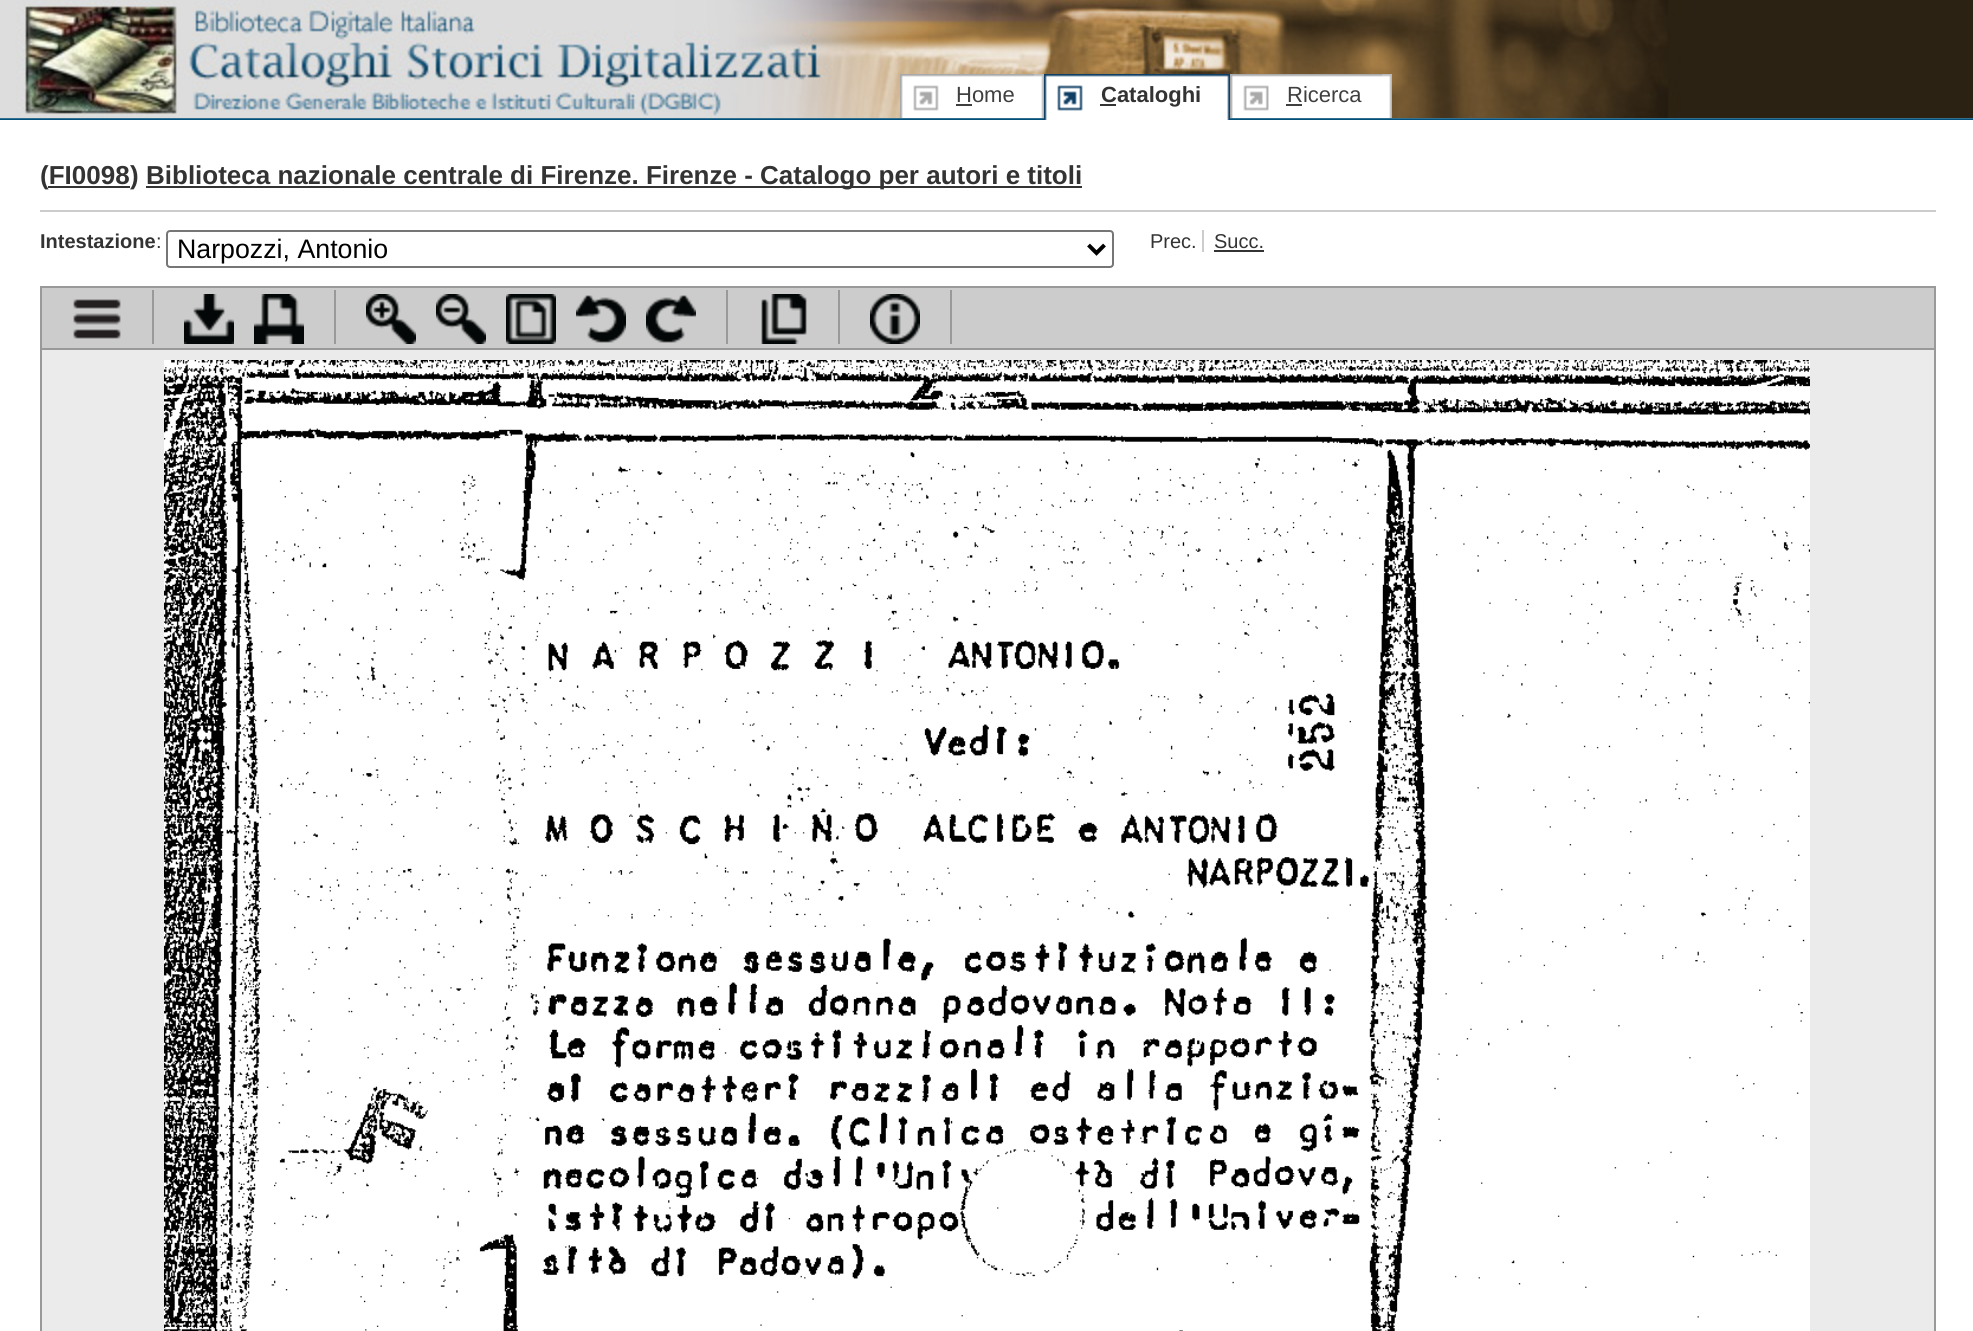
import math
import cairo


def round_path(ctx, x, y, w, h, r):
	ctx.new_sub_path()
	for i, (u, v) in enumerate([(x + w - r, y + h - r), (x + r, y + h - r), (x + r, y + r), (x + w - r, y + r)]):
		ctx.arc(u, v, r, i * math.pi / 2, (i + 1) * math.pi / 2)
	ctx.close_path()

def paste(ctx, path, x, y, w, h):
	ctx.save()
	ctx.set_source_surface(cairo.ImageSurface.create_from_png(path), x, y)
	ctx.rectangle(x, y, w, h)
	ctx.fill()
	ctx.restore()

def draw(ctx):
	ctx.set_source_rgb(1, 1, 1)
	ctx.paint()
	paste(ctx, 'media/1.png', 0, 118, 1973, 2)
	paste(ctx, 'media/2.png', 0, 0, 1973, 118)
	paste(ctx, 'media/3.png', 900, 74, 134, 44)
	paste(ctx, 'media/4.png', 1034, 74, 10, 44)
	ctx.select_font_face('Liberation Sans')
	ctx.set_font_size(22)
	ctx.set_source_rgb(0.247, 0.247, 0.247)
	ctx.move_to(956, 102)
	ctx.show_text('Home')
	ctx.rectangle(956, 104, 16, 2)
	ctx.fill()
	paste(ctx, 'media/5.png', 1044, 74, 186, 46)
	paste(ctx, 'media/6.png', 1227, 75, 3, 45)
	ctx.set_source_rgb(0.2, 0.2, 0.2)
	ctx.rectangle(1100, 104, 16, 2)
	ctx.fill()
	ctx.select_font_face('Liberation Sans', cairo.FONT_SLANT_NORMAL, cairo.FONT_WEIGHT_BOLD)
	ctx.move_to(1101, 102)
	ctx.show_text('Cataloghi')
	paste(ctx, 'media/7.png', 1230, 74, 152, 44)
	paste(ctx, 'media/4.png', 1382, 74, 10, 44)
	ctx.select_font_face('Liberation Sans')
	ctx.set_source_rgb(0.247, 0.247, 0.247)
	ctx.move_to(1287, 102)
	ctx.show_text('Ricerca')
	ctx.rectangle(1286, 104, 16, 2)
	ctx.fill()
	ctx.select_font_face('Liberation Sans', cairo.FONT_SLANT_NORMAL, cairo.FONT_WEIGHT_BOLD)
	ctx.set_font_size(26)
	ctx.set_source_rgb(0.2, 0.2, 0.2)
	ctx.move_to(40, 184)
	ctx.show_text('(FI0098')
	ctx.rectangle(48, 186, 82, 2)
	ctx.fill()
	ctx.move_to(130, 184)
	ctx.show_text(')')
	ctx.rectangle(146, 186, 936, 2)
	ctx.fill()
	ctx.move_to(146, 184)
	ctx.show_text('Biblioteca nazionale centrale di Firenze. Firenze - Catalogo per autori e titoli')
	ctx.set_source_rgb(0.8, 0.8, 0.8)
	ctx.rectangle(40, 210, 1896, 2)
	ctx.fill()
	ctx.set_font_size(20)
	ctx.set_source_rgb(0.2, 0.2, 0.2)
	ctx.move_to(40, 248)
	ctx.show_text('Intestazione')
	ctx.select_font_face('Liberation Sans')
	ctx.move_to(156, 248)
	ctx.show_text(':')
	round_path(ctx, 167, 231, 946, 36, 3)
	ctx.set_source_rgb(0.463, 0.463, 0.463)
	ctx.stroke()
	ctx.new_path()
	ctx.move_to(1088.5, 245)
	ctx.line_to(1096.5, 253)
	ctx.line_to(1104.5, 245)
	ctx.set_source_rgb(0, 0, 0)
	ctx.set_line_width(4)
	ctx.stroke()
	ctx.set_font_size(26.75)
	ctx.move_to(177, 258)
	ctx.show_text('Narpozzi, Antonio')
	ctx.set_font_size(20)
	ctx.set_source_rgb(0.2, 0.2, 0.2)
	ctx.move_to(1150, 248)
	ctx.show_text('Prec.')
	ctx.set_source_rgb(0.8, 0.8, 0.8)
	ctx.rectangle(1202, 230, 2, 22)
	ctx.fill()
	ctx.set_source_rgb(0.2, 0.2, 0.2)
	ctx.move_to(1214, 248)
	ctx.show_text('Succ.')
	ctx.rectangle(1214, 250, 50, 2)
	ctx.fill()
	ctx.set_source_rgb(0.8, 0.8, 0.8)
	ctx.rectangle(41, 287, 1894, 62)
	ctx.fill_preserve()
	ctx.set_source_rgb(0.6, 0.6, 0.6)
	ctx.set_line_width(2)
	ctx.stroke()
	ctx.rectangle(152, 290, 2, 54)
	ctx.fill()
	paste(ctx, 'media/8.png', 73, 299, 48, 40)
	ctx.rectangle(334, 290, 2, 54)
	ctx.fill()
	paste(ctx, 'media/9.png', 184, 294, 50, 50)
	paste(ctx, 'media/10.png', 254, 294, 50, 50)
	ctx.rectangle(726, 290, 2, 54)
	ctx.fill()
	paste(ctx, 'media/11.png', 366, 294, 50, 50)
	paste(ctx, 'media/12.png', 436, 294, 50, 50)
	paste(ctx, 'media/13.png', 506, 294, 50, 50)
	paste(ctx, 'media/14.png', 576, 295, 50, 48)
	paste(ctx, 'media/15.png', 646, 295, 50, 48)
	ctx.rectangle(838, 290, 2, 54)
	ctx.fill()
	paste(ctx, 'media/16.png', 761, 294, 46, 50)
	ctx.rectangle(950, 290, 2, 54)
	ctx.fill()
	paste(ctx, 'media/17.png', 870, 294, 50, 50)
	ctx.set_source_rgb(0.922, 0.918, 0.925)
	ctx.rectangle(42, 350, 1892, 981)
	ctx.fill()
	ctx.set_source_rgb(0.6, 0.6, 0.6)
	ctx.rectangle(1934, 350, 2, 981)
	ctx.rectangle(40, 350, 2, 981)
	ctx.fill()
	paste(ctx, 'media/18.png', 164, 360, 1646, 971)


surface = cairo.ImageSurface(cairo.FORMAT_RGB24, 1973, 1331)
ctx = cairo.Context(surface)
options = cairo.FontOptions()
options.set_hint_metrics(cairo.HINT_METRICS_OFF)
options.set_hint_style(cairo.HINT_STYLE_NONE)
ctx.set_font_options(options)
ctx.set_miter_limit(4)
draw(ctx)
surface.write_to_png('image.png')
